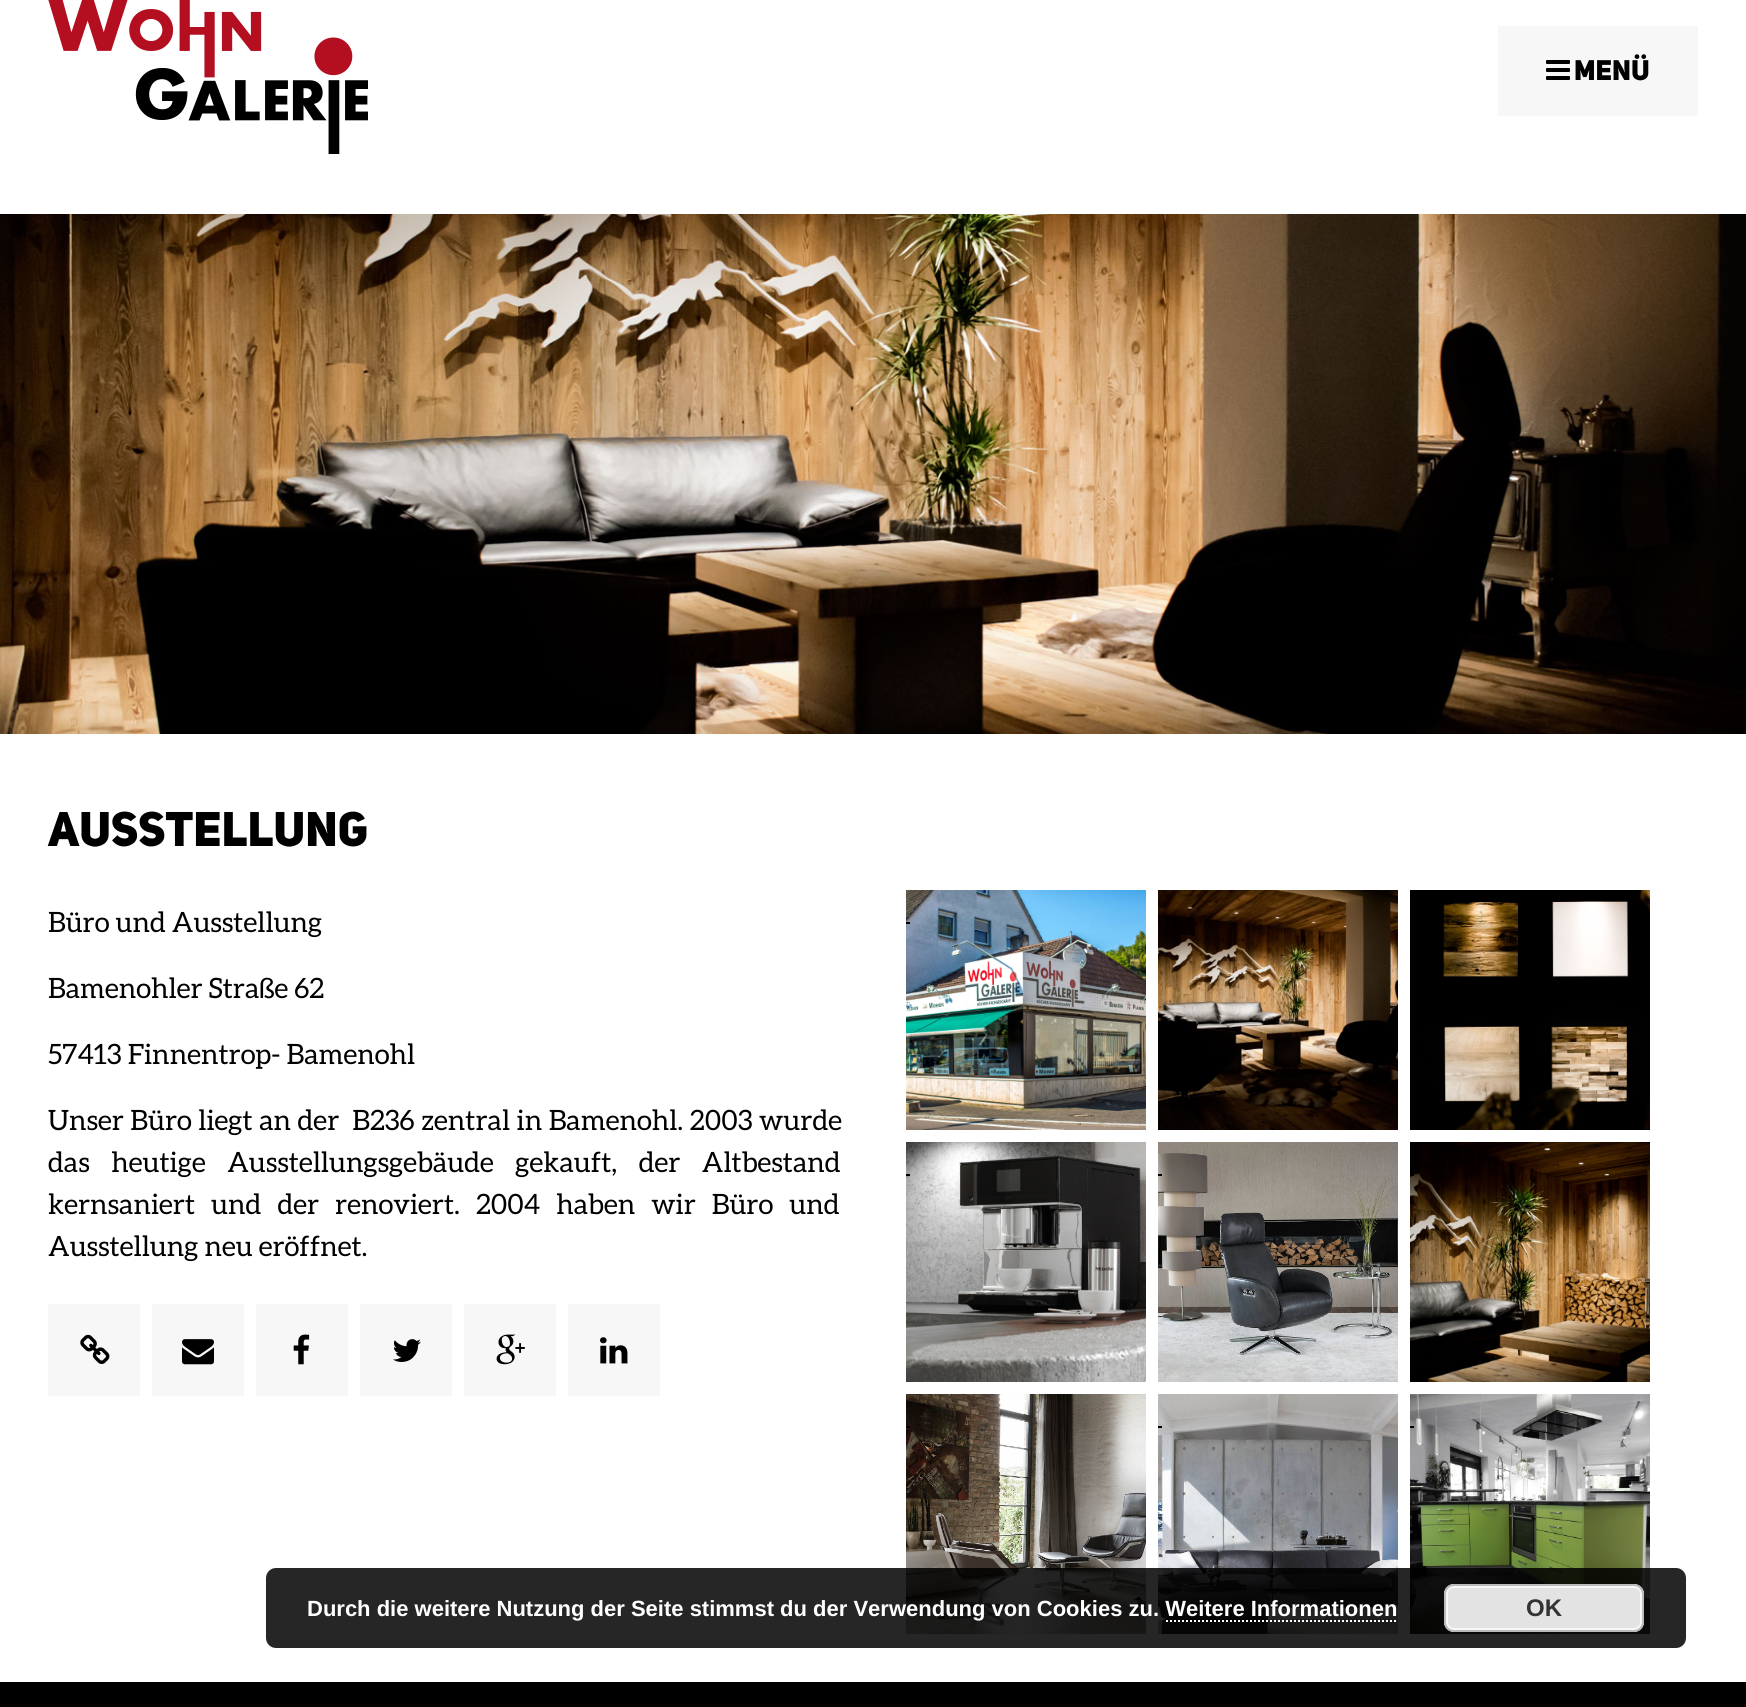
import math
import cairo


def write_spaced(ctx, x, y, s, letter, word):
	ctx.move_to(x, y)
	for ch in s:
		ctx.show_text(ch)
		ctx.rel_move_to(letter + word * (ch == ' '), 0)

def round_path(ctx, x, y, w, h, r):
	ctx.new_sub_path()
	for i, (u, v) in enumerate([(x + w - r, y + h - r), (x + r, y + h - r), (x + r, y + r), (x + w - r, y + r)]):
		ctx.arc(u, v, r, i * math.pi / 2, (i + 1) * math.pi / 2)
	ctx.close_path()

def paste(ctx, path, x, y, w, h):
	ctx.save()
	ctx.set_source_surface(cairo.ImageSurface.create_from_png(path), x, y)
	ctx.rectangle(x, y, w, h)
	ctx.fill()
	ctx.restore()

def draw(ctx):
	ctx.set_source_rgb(1, 1, 1)
	ctx.paint()
	paste(ctx, 'media/1.png', 48, 0, 320, 154)
	ctx.set_source_rgb(0.965, 0.965, 0.965)
	ctx.rectangle(1498, 26, 200, 90)
	ctx.fill()
	paste(ctx, 'media/2.png', 1546, 60, 24, 20)
	ctx.select_font_face('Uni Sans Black')
	ctx.set_font_size(28)
	ctx.set_source_rgb(0, 0, 0)
	ctx.move_to(1574, 80)
	ctx.show_text('Menü')
	paste(ctx, 'media/3.png', 0, 214, 1746, 520)
	ctx.set_font_size(48)
	ctx.move_to(48, 846)
	ctx.show_text('Ausstellung')
	ctx.select_font_face('Aleo')
	ctx.set_font_size(28)
	for x, y, s in [
		(48, 932, 'Büro und Ausstellung'),
		(48, 998, 'Bamenohler Straße 62'),
		(48, 1064, '57413 Finnentrop- Bamenohl'),
	]:
		ctx.move_to(x, y)
		ctx.show_text(s)
	write_spaced(ctx, 48, 1130, 'Unser Büro liegt an der  B236 zentral in Bamenohl. 2003 wurde', 0, 0.5)
	write_spaced(ctx, 48, 1172, 'das heutige Ausstellungsgebäude gekauft, der Altbestand', 0, 15.5)
	write_spaced(ctx, 48, 1214, 'kernsaniert und der renoviert. 2004 haben wir Büro und', 0, 10)
	ctx.move_to(48, 1256)
	ctx.show_text('Ausstellung neu eröffnet.')
	ctx.set_source_rgb(0.965, 0.965, 0.965)
	ctx.rectangle(48, 1304, 92, 92)
	ctx.fill()
	paste(ctx, 'media/4.png', 80, 1334, 30, 30)
	ctx.rectangle(152, 1304, 92, 92)
	ctx.fill()
	paste(ctx, 'media/5.png', 182, 1339, 32, 26)
	ctx.rectangle(256, 1304, 92, 92)
	ctx.fill()
	paste(ctx, 'media/6.png', 293, 1334, 17, 31)
	ctx.rectangle(360, 1304, 92, 92)
	ctx.fill()
	paste(ctx, 'media/7.png', 393, 1339, 28, 23)
	ctx.rectangle(464, 1304, 92, 92)
	ctx.fill()
	paste(ctx, 'media/8.png', 496, 1334, 29, 31)
	ctx.rectangle(568, 1304, 92, 92)
	ctx.fill()
	paste(ctx, 'media/9.png', 600, 1337, 28, 27)
	paste(ctx, 'media/10.png', 906, 890, 240, 240)
	ctx.set_source_rgb(0, 0, 0)
	ctx.rectangle(906, 922, 4, 2)
	ctx.fill()
	paste(ctx, 'media/11.png', 1158, 890, 240, 240)
	ctx.rectangle(1158, 922, 4, 2)
	ctx.fill()
	paste(ctx, 'media/12.png', 1410, 890, 240, 240)
	paste(ctx, 'media/13.png', 906, 1142, 240, 240)
	ctx.rectangle(906, 1174, 4, 2)
	ctx.fill()
	paste(ctx, 'media/14.png', 1158, 1142, 240, 240)
	ctx.rectangle(1158, 1174, 4, 2)
	ctx.fill()
	paste(ctx, 'media/15.png', 1410, 1142, 240, 240)
	ctx.rectangle(1410, 1174, 4, 2)
	ctx.fill()
	paste(ctx, 'media/16.png', 906, 1394, 240, 240)
	ctx.rectangle(906, 1426, 4, 2)
	ctx.fill()
	paste(ctx, 'media/17.png', 1158, 1394, 240, 240)
	ctx.rectangle(1158, 1426, 4, 2)
	ctx.fill()
	paste(ctx, 'media/18.png', 1410, 1394, 240, 240)
	ctx.rectangle(1410, 1426, 4, 2)
	ctx.fill()
	ctx.rectangle(0, 1682, 1746, 25)
	ctx.fill()
	ctx.set_source_rgba(0, 0, 0, 0.85)
	round_path(ctx, 266, 1568, 1420, 80, 10)
	ctx.fill()
	ctx.select_font_face('Liberation Sans', cairo.FONT_SLANT_NORMAL, cairo.FONT_WEIGHT_BOLD)
	ctx.set_font_size(22)
	ctx.set_source_rgb(1, 1, 1)
	ctx.move_to(307, 1616)
	ctx.show_text('Durch die weitere Nutzung der Seite stimmst du der Verwendung von Cookies zu. Weitere Informationen')
	ctx.set_source_rgb(0.89, 0.89, 0.89)
	round_path(ctx, 1444, 1584, 200, 48, 10)
	ctx.fill()
	round_path(ctx, 1447, 1587, 194, 42, 7)
	ctx.set_source_rgb(0.965, 0.965, 0.965)
	ctx.stroke()
	round_path(ctx, 1445, 1585, 198, 46, 9)
	ctx.set_source_rgb(0.733, 0.733, 0.733)
	ctx.stroke()
	ctx.set_font_size(24)
	ctx.set_source_rgb(0.2, 0.2, 0.2)
	ctx.move_to(1526, 1616)
	ctx.show_text('OK')
	ctx.new_path()
	ctx.move_to(1166, 1621)
	ctx.line_to(1398, 1621)
	ctx.set_source_rgb(1, 1, 1)
	ctx.set_dash([2, 2])
	ctx.stroke()


surface = cairo.ImageSurface(cairo.FORMAT_RGB24, 1746, 1707)
ctx = cairo.Context(surface)
options = cairo.FontOptions()
options.set_hint_metrics(cairo.HINT_METRICS_OFF)
options.set_hint_style(cairo.HINT_STYLE_NONE)
ctx.set_font_options(options)
ctx.set_miter_limit(4)
draw(ctx)
surface.write_to_png('image.png')
